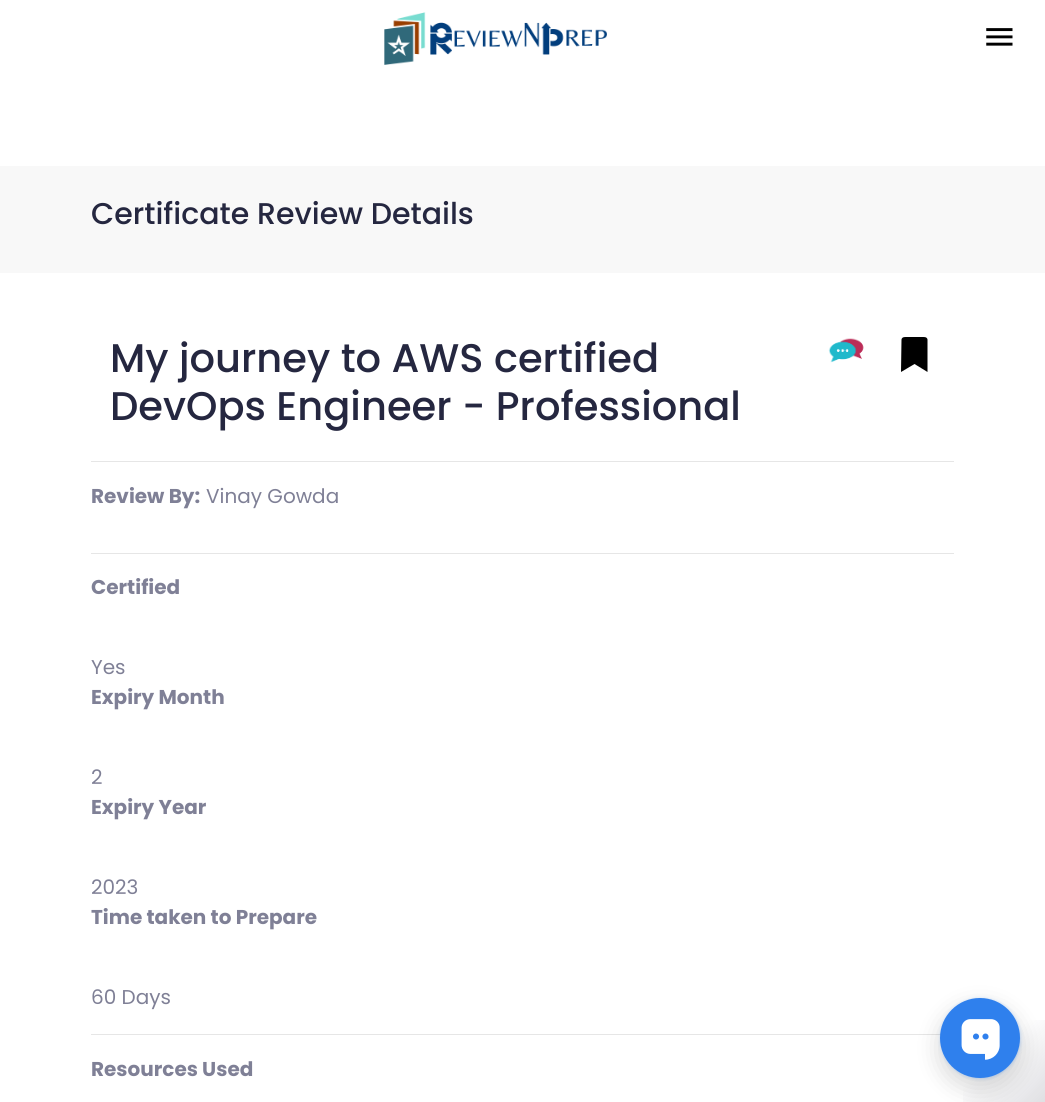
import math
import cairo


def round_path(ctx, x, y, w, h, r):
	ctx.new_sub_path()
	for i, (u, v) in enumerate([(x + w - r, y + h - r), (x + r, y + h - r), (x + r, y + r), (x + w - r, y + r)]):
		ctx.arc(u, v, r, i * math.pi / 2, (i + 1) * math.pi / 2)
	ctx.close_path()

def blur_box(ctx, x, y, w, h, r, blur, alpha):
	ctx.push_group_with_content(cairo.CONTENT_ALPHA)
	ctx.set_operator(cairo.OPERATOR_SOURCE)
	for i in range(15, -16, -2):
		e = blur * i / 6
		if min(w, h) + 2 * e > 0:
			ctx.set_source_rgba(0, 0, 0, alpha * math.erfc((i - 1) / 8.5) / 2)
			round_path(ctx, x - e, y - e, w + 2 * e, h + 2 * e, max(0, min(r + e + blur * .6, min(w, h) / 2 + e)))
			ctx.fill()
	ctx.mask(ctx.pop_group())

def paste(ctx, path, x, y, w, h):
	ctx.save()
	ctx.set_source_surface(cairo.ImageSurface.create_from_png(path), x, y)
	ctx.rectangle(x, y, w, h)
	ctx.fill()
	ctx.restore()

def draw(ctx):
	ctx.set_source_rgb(1, 1, 1)
	ctx.paint()
	paste(ctx, 'media/1.png', 384, 12, 223, 53)
	paste(ctx, 'media/2.png', 986, 28, 27, 18)
	ctx.set_source_rgb(0.969, 0.969, 0.969)
	ctx.rectangle(0, 166, 1045, 107)
	ctx.fill()
	ctx.select_font_face('Poppins Medium')
	ctx.set_font_size(30)
	ctx.set_source_rgb(0.145, 0.153, 0.251)
	ctx.move_to(91, 224)
	ctx.show_text('Certificate Review Details')
	ctx.set_font_size(40)
	ctx.move_to(110, 372)
	ctx.show_text('My journey to AWS certified')
	ctx.move_to(110, 420)
	ctx.show_text('DevOps Engineer - Professional')
	paste(ctx, 'media/3.png', 828, 338, 36, 25)
	ctx.set_source_rgb(0, 0, 0)
	ctx.new_path()
	ctx.move_to(901, 372)
	ctx.line_to(901.5, 339.5)
	ctx.curve_to(902, 336.5, 905.5, 337, 908, 337)
	ctx.line_to(921, 337)
	ctx.curve_to(923.5, 337, 927, 336.5, 927.5, 339.5)
	ctx.line_to(927.5, 372)
	ctx.line_to(914.5, 364)
	ctx.close_path()
	ctx.fill()
	ctx.set_source_rgb(0.902, 0.902, 0.902)
	ctx.rectangle(91, 461, 863, 1)
	ctx.fill()
	ctx.select_font_face('Poppins', cairo.FONT_SLANT_NORMAL, cairo.FONT_WEIGHT_BOLD)
	ctx.set_font_size(20)
	ctx.set_source_rgb(0.498, 0.502, 0.588)
	ctx.move_to(91, 503)
	ctx.show_text('Review By:')
	ctx.select_font_face('Poppins')
	ctx.move_to(206, 503)
	ctx.show_text('Vinay Gowda')
	ctx.set_source_rgb(0.902, 0.902, 0.902)
	ctx.rectangle(91, 553, 863, 1)
	ctx.fill()
	ctx.select_font_face('Poppins', cairo.FONT_SLANT_NORMAL, cairo.FONT_WEIGHT_BOLD)
	ctx.set_source_rgb(0.498, 0.502, 0.588)
	ctx.move_to(91, 594)
	ctx.show_text('Certified')
	ctx.select_font_face('Poppins')
	ctx.move_to(91, 674)
	ctx.show_text('Yes')
	ctx.select_font_face('Poppins', cairo.FONT_SLANT_NORMAL, cairo.FONT_WEIGHT_BOLD)
	ctx.move_to(91, 704)
	ctx.show_text('Expiry Month')
	ctx.select_font_face('Poppins')
	ctx.move_to(91, 784)
	ctx.show_text('2')
	ctx.select_font_face('Poppins', cairo.FONT_SLANT_NORMAL, cairo.FONT_WEIGHT_BOLD)
	ctx.move_to(91, 814)
	ctx.show_text('Expiry Year')
	ctx.select_font_face('Poppins')
	ctx.move_to(91, 894)
	ctx.show_text('2023')
	ctx.select_font_face('Poppins', cairo.FONT_SLANT_NORMAL, cairo.FONT_WEIGHT_BOLD)
	ctx.move_to(91, 924)
	ctx.show_text('Time taken to Prepare')
	ctx.select_font_face('Poppins')
	ctx.move_to(91, 1004)
	ctx.show_text('60 Days')
	ctx.set_source_rgb(0.902, 0.902, 0.902)
	ctx.rectangle(91, 1034, 850, 1)
	ctx.fill()
	ctx.select_font_face('Poppins', cairo.FONT_SLANT_NORMAL, cairo.FONT_WEIGHT_BOLD)
	ctx.set_source_rgb(0.498, 0.502, 0.588)
	ctx.move_to(91, 1076)
	ctx.show_text('Resources Used')
	gradient = cairo.LinearGradient(920, 978, 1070, 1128)
	gradient.add_color_stop_rgba(0.5, 0.055, 0.055, 0.161, 0)
	gradient.add_color_stop_rgba(1, 0.055, 0.055, 0.161, 0.2)
	ctx.set_source(gradient)
	ctx.rectangle(963, 1020, 82, 82)
	ctx.fill()
	ctx.set_source_rgb(0, 0, 0)
	blur_box(ctx, 940, 1008, 80, 80, 40, 12.5, 0.16)
	ctx.set_source_rgb(0.184, 0.502, 0.929)
	blur_box(ctx, 943, 1001, 75, 75, 37.5, 2.5, 1)
	ctx.set_source_rgb(0.184, 0.502, 0.929)
	ctx.arc(980, 1038, 40, 0, 2 * math.pi)
	ctx.fill()
	paste(ctx, 'media/4.png', 961, 1019, 39, 41)


surface = cairo.ImageSurface(cairo.FORMAT_RGB24, 1045, 1102)
ctx = cairo.Context(surface)
options = cairo.FontOptions()
options.set_hint_metrics(cairo.HINT_METRICS_OFF)
options.set_hint_style(cairo.HINT_STYLE_NONE)
ctx.set_font_options(options)
ctx.set_miter_limit(4)
draw(ctx)
surface.write_to_png('image.png')
